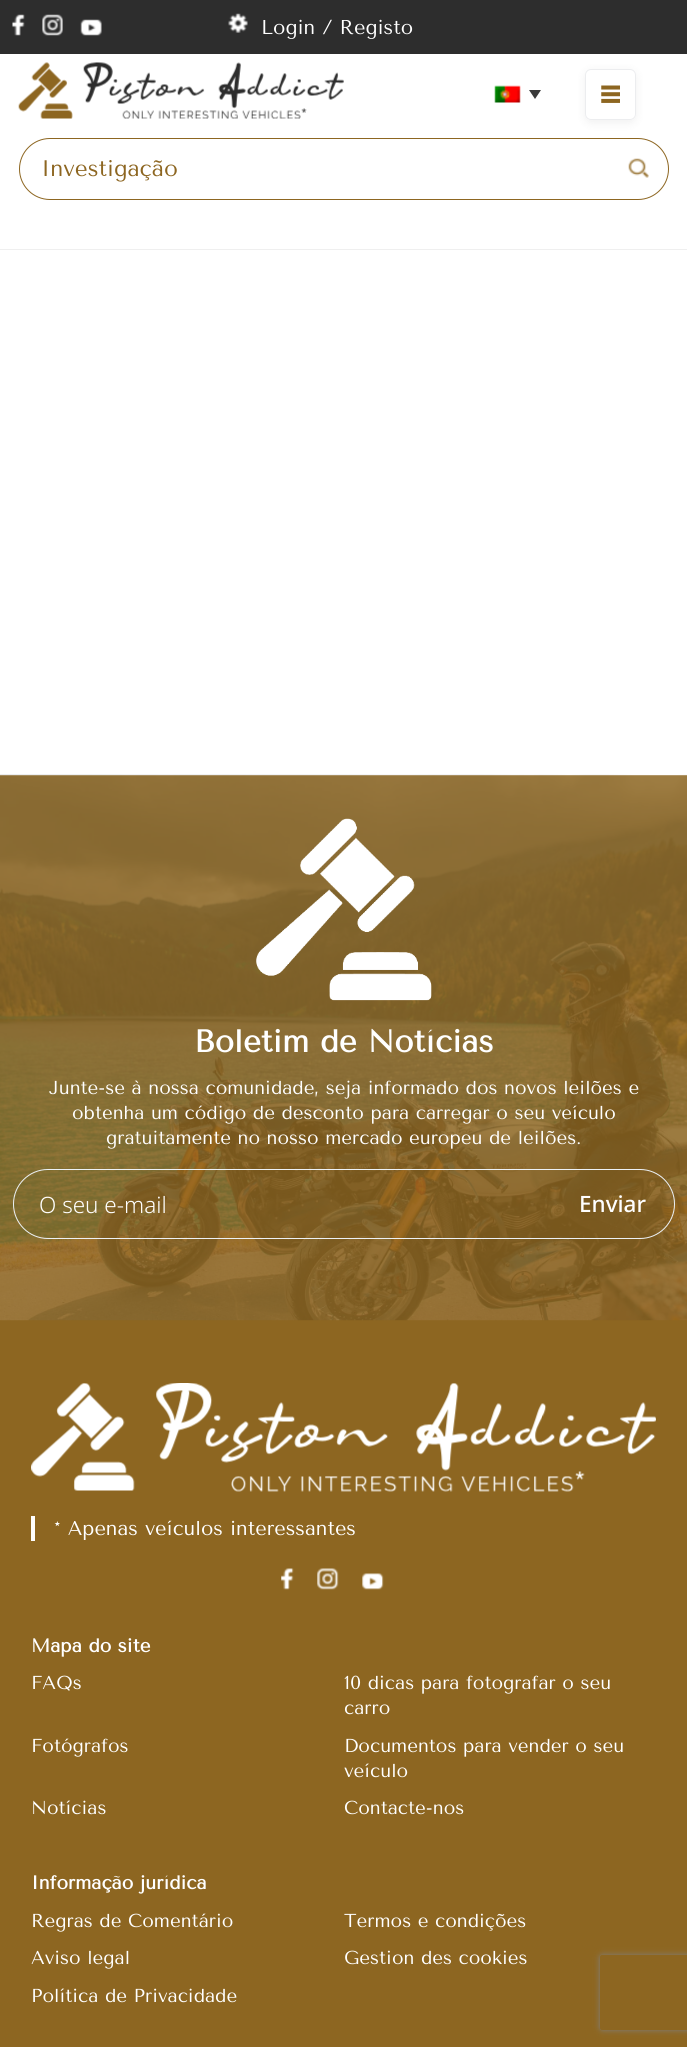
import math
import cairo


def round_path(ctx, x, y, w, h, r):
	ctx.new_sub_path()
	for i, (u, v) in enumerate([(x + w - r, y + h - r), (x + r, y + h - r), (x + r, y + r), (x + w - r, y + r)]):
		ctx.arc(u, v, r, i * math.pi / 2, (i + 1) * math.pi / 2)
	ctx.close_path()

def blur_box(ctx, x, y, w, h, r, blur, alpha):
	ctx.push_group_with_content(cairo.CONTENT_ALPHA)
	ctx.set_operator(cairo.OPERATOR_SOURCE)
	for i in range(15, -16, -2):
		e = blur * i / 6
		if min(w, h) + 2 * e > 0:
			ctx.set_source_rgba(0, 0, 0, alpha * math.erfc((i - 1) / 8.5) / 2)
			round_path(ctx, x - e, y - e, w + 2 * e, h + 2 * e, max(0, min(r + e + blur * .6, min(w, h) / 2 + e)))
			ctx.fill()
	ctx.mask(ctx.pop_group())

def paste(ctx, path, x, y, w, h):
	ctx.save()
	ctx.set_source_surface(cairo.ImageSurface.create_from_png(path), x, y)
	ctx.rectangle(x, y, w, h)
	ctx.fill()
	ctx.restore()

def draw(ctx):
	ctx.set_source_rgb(1, 1, 1)
	ctx.paint()
	ctx.set_source_rgb(0.176, 0.176, 0.176)
	ctx.rectangle(0, 0, 687, 54)
	ctx.fill()
	paste(ctx, 'media/1.png', 12, 14, 13, 22)
	paste(ctx, 'media/2.png', 42, 14, 21, 22)
	paste(ctx, 'media/3.png', 80, 19, 22, 17)
	paste(ctx, 'media/4.png', 228, 13, 20, 20)
	ctx.select_font_face('Tenor Sans')
	ctx.set_font_size(20)
	ctx.set_source_rgb(1, 1, 1)
	ctx.move_to(261, 34)
	ctx.show_text('Login / Registo')
	paste(ctx, 'media/5.png', 18, 62, 326, 57)
	paste(ctx, 'media/6.png', 494, 85, 27, 18)
	ctx.set_source_rgb(0.227, 0.227, 0.227)
	ctx.new_path()
	ctx.move_to(529, 90)
	ctx.line_to(541, 90)
	ctx.line_to(535, 99)
	ctx.close_path()
	ctx.fill()
	round_path(ctx, 19.5, 138.5, 649, 61, 30.5)
	ctx.set_source_rgb(0.553, 0.4, 0.129)
	ctx.set_line_width(1)
	ctx.stroke()
	ctx.save()
	ctx.set_fill_rule(cairo.FILL_RULE_EVEN_ODD)
	ctx.new_path()
	ctx.move_to(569, 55)
	ctx.line_to(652, 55)
	ctx.line_to(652, 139)
	ctx.line_to(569, 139)
	ctx.close_path()
	ctx.move_to(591, 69)
	ctx.line_to(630, 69)
	ctx.curve_to(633.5, 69, 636, 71.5, 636, 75)
	ctx.line_to(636, 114)
	ctx.curve_to(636, 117.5, 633.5, 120, 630, 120)
	ctx.line_to(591, 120)
	ctx.curve_to(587.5, 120, 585, 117.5, 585, 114)
	ctx.line_to(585, 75)
	ctx.curve_to(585, 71.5, 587.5, 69, 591, 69)
	ctx.close_path()
	ctx.clip()
	ctx.set_source_rgb(0, 0, 0)
	blur_box(ctx, 585, 71, 51, 52, 6, 5, 0.06)
	ctx.restore()
	round_path(ctx, 585.5, 69.5, 50, 50, 5.5)
	ctx.set_source_rgb(0.925, 0.929, 0.937)
	ctx.stroke()
	paste(ctx, 'media/7.png', 601, 85, 19, 18)
	ctx.set_font_size(22.5)
	ctx.set_source_rgb(0.553, 0.4, 0.129)
	ctx.move_to(41, 176)
	ctx.show_text('Investigação')
	paste(ctx, 'media/8.png', 628, 158, 21, 20)
	ctx.set_source_rgb(0.937, 0.937, 0.937)
	ctx.rectangle(0, 249, 687, 1)
	ctx.fill()
	ctx.set_source_rgb(0.553, 0.4, 0.129)
	ctx.rectangle(0, 1320, 687, 727)
	ctx.fill()
	paste(ctx, 'media/9.png', 0, 774, 687, 547)
	paste(ctx, 'media/10.png', 256, 818, 176, 183)
	ctx.select_font_face('Tenor Sans', cairo.FONT_SLANT_NORMAL, cairo.FONT_WEIGHT_BOLD)
	ctx.set_font_size(31.25)
	ctx.set_source_rgb(1, 1, 1)
	ctx.move_to(194, 1052)
	ctx.show_text('Boletim de Notícias')
	ctx.select_font_face('Tenor Sans')
	ctx.set_font_size(18.75)
	for x, y, s in [
		(49, 1094, 'Junte-se à nossa comunidade, seja informado dos novos leilões e'),
		(72, 1119, 'obtenha um código de desconto para carregar o seu veículo'),
		(106, 1144, 'gratuitamente no nosso mercado europeu de leilões.'),
	]:
		ctx.move_to(x, y)
		ctx.show_text(s)
	round_path(ctx, 13.5, 1169.5, 661, 69, 34.5)
	ctx.set_source_rgb(0.925, 0.945, 0.961)
	ctx.stroke()
	ctx.select_font_face('Noto Sans Light')
	ctx.set_font_size(22.5)
	ctx.set_source_rgb(1, 1, 1)
	ctx.move_to(39, 1213)
	ctx.show_text('O seu e-mail')
	ctx.select_font_face('Noto Sans Medium')
	ctx.move_to(579, 1212)
	ctx.show_text('Enviar')
	paste(ctx, 'media/11.png', 31, 1383, 625, 109)
	ctx.rectangle(31, 1516, 4, 25)
	ctx.fill()
	ctx.select_font_face('Tenor Sans')
	ctx.set_font_size(20)
	ctx.move_to(54, 1535)
	ctx.show_text('* Apenas veículos interessantes')
	paste(ctx, 'media/12.png', 281, 1568, 13, 22)
	paste(ctx, 'media/13.png', 317, 1568, 22, 22)
	paste(ctx, 'media/14.png', 362, 1573, 22, 17)
	ctx.select_font_face('Tenor Sans', cairo.FONT_SLANT_NORMAL, cairo.FONT_WEIGHT_BOLD)
	ctx.set_font_size(18.75)
	ctx.move_to(31, 1652)
	ctx.show_text('Mapa do site')
	ctx.select_font_face('Tenor Sans')
	for x, y, s in [
		(31, 1689, 'FAQs'),
		(344, 1689, '10 dicas para fotografar o seu'),
		(344, 1714, 'carro'),
		(31, 1752, 'Fotógrafos'),
		(344, 1752, 'Documentos para vender o seu'),
		(344, 1777, 'veículo'),
		(31, 1814, 'Notícias'),
		(344, 1814, 'Contacte-nos'),
	]:
		ctx.move_to(x, y)
		ctx.show_text(s)
	ctx.select_font_face('Tenor Sans', cairo.FONT_SLANT_NORMAL, cairo.FONT_WEIGHT_BOLD)
	ctx.move_to(31, 1889)
	ctx.show_text('Informação jurídica')
	ctx.select_font_face('Tenor Sans')
	for x, y, s in [
		(31, 1927, 'Regras de Comentário'),
		(344, 1927, 'Termos e condições'),
		(31, 1964, 'Aviso legal'),
		(344, 1964, 'Gestion des cookies'),
		(31, 2002, 'Política de Privacidade'),
	]:
		ctx.move_to(x, y)
		ctx.show_text(s)
	ctx.save()
	ctx.set_fill_rule(cairo.FILL_RULE_EVEN_ODD)
	ctx.new_path()
	ctx.move_to(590, 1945)
	ctx.line_to(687, 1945)
	ctx.line_to(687, 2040)
	ctx.line_to(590, 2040)
	ctx.close_path()
	ctx.move_to(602.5, 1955)
	ctx.line_to(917.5, 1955)
	ctx.curve_to(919, 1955, 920, 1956, 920, 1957.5)
	ctx.line_to(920, 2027.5)
	ctx.curve_to(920, 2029, 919, 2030, 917.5, 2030)
	ctx.line_to(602.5, 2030)
	ctx.curve_to(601, 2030, 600, 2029, 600, 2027.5)
	ctx.line_to(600, 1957.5)
	ctx.curve_to(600, 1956, 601, 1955, 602.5, 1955)
	ctx.close_path()
	ctx.clip()
	ctx.set_source_rgb(0.502, 0.502, 0.502)
	blur_box(ctx, 600, 1955, 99, 75, 2.5, 3, 1)
	ctx.restore()


surface = cairo.ImageSurface(cairo.FORMAT_RGB24, 687, 2047)
ctx = cairo.Context(surface)
options = cairo.FontOptions()
options.set_hint_metrics(cairo.HINT_METRICS_OFF)
options.set_hint_style(cairo.HINT_STYLE_NONE)
ctx.set_font_options(options)
ctx.set_miter_limit(4)
draw(ctx)
surface.write_to_png('image.png')
